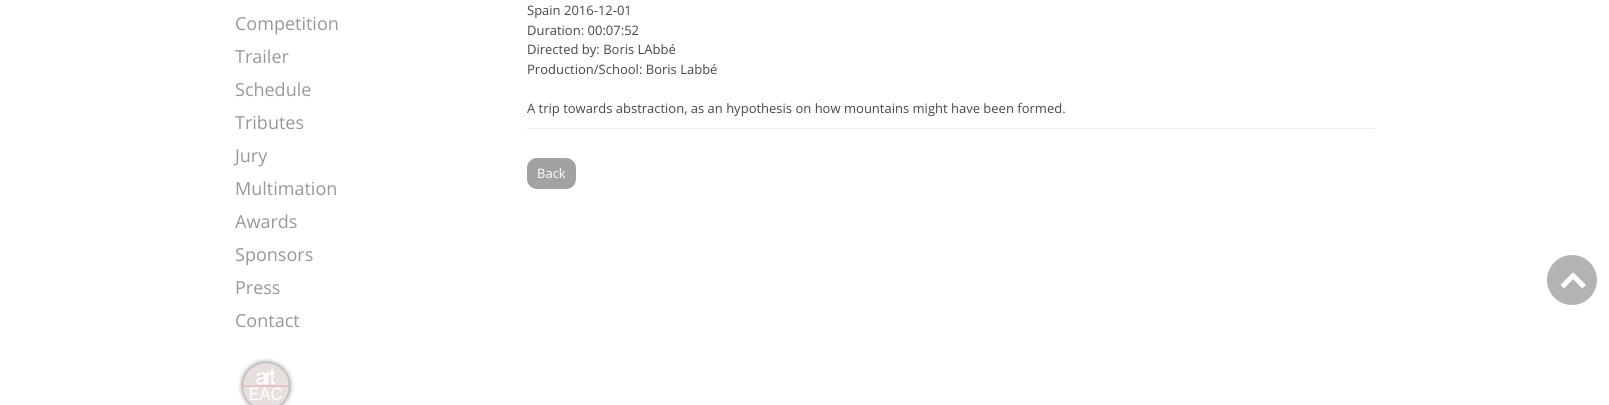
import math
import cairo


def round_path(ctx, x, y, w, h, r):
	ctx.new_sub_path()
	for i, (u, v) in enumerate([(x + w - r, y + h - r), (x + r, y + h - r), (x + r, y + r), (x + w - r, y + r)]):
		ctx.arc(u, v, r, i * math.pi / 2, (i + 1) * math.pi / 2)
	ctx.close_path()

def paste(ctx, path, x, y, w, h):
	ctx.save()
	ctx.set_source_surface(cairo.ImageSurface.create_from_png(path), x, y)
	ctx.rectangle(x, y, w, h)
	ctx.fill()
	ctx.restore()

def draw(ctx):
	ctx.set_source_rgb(1, 1, 1)
	ctx.paint()
	ctx.select_font_face('Open Sans')
	ctx.set_font_size(18)
	ctx.set_source_rgb(0.596, 0.596, 0.596)
	for x, y, s in [
		(235, 30, 'Competition'),
		(235, 63, 'Trailer'),
		(235, 96, 'Schedule'),
		(235, 129, 'Tributes'),
		(235, 162, 'Jury'),
		(235, 195, 'Multimation'),
		(235, 228, 'Awards'),
		(235, 261, 'Sponsors'),
		(235, 294, 'Press'),
		(235, 327, 'Contact'),
	]:
		ctx.move_to(x, y)
		ctx.show_text(s)
	paste(ctx, 'media/1.png', 238, 358, 56, 47)
	ctx.set_font_size(13)
	ctx.set_source_rgb(0.278, 0.278, 0.278)
	for x, y, s in [
		(527, 15, 'Spain 2016-12-01'),
		(527, 35, 'Duration: 00:07:52'),
		(527, 54, 'Directed by: Boris LAbbé'),
		(527, 74, 'Production/School: Boris Labbé'),
		(527, 113, 'A trip towards abstraction, as an hypothesis on how mountains might have been formed.'),
	]:
		ctx.move_to(x, y)
		ctx.show_text(s)
	ctx.set_source_rgb(0.933, 0.933, 0.933)
	ctx.rectangle(527, 128, 848, 1)
	ctx.fill()
	ctx.set_source_rgb(0.635, 0.635, 0.635)
	round_path(ctx, 527, 158, 49, 31, 10)
	ctx.fill()
	ctx.set_source_rgb(1, 1, 1)
	ctx.move_to(537, 178)
	ctx.show_text('Back')
	ctx.set_source_rgb(0.702, 0.702, 0.702)
	ctx.new_path()
	ctx.arc(1572, 280, 25, 0, 2 * math.pi)
	ctx.fill()
	paste(ctx, 'media/2.png', 1560, 272, 26, 17)


surface = cairo.ImageSurface(cairo.FORMAT_RGB24, 1609, 405)
ctx = cairo.Context(surface)
options = cairo.FontOptions()
options.set_hint_metrics(cairo.HINT_METRICS_OFF)
options.set_hint_style(cairo.HINT_STYLE_NONE)
ctx.set_font_options(options)
ctx.set_miter_limit(4)
draw(ctx)
surface.write_to_png('image.png')
